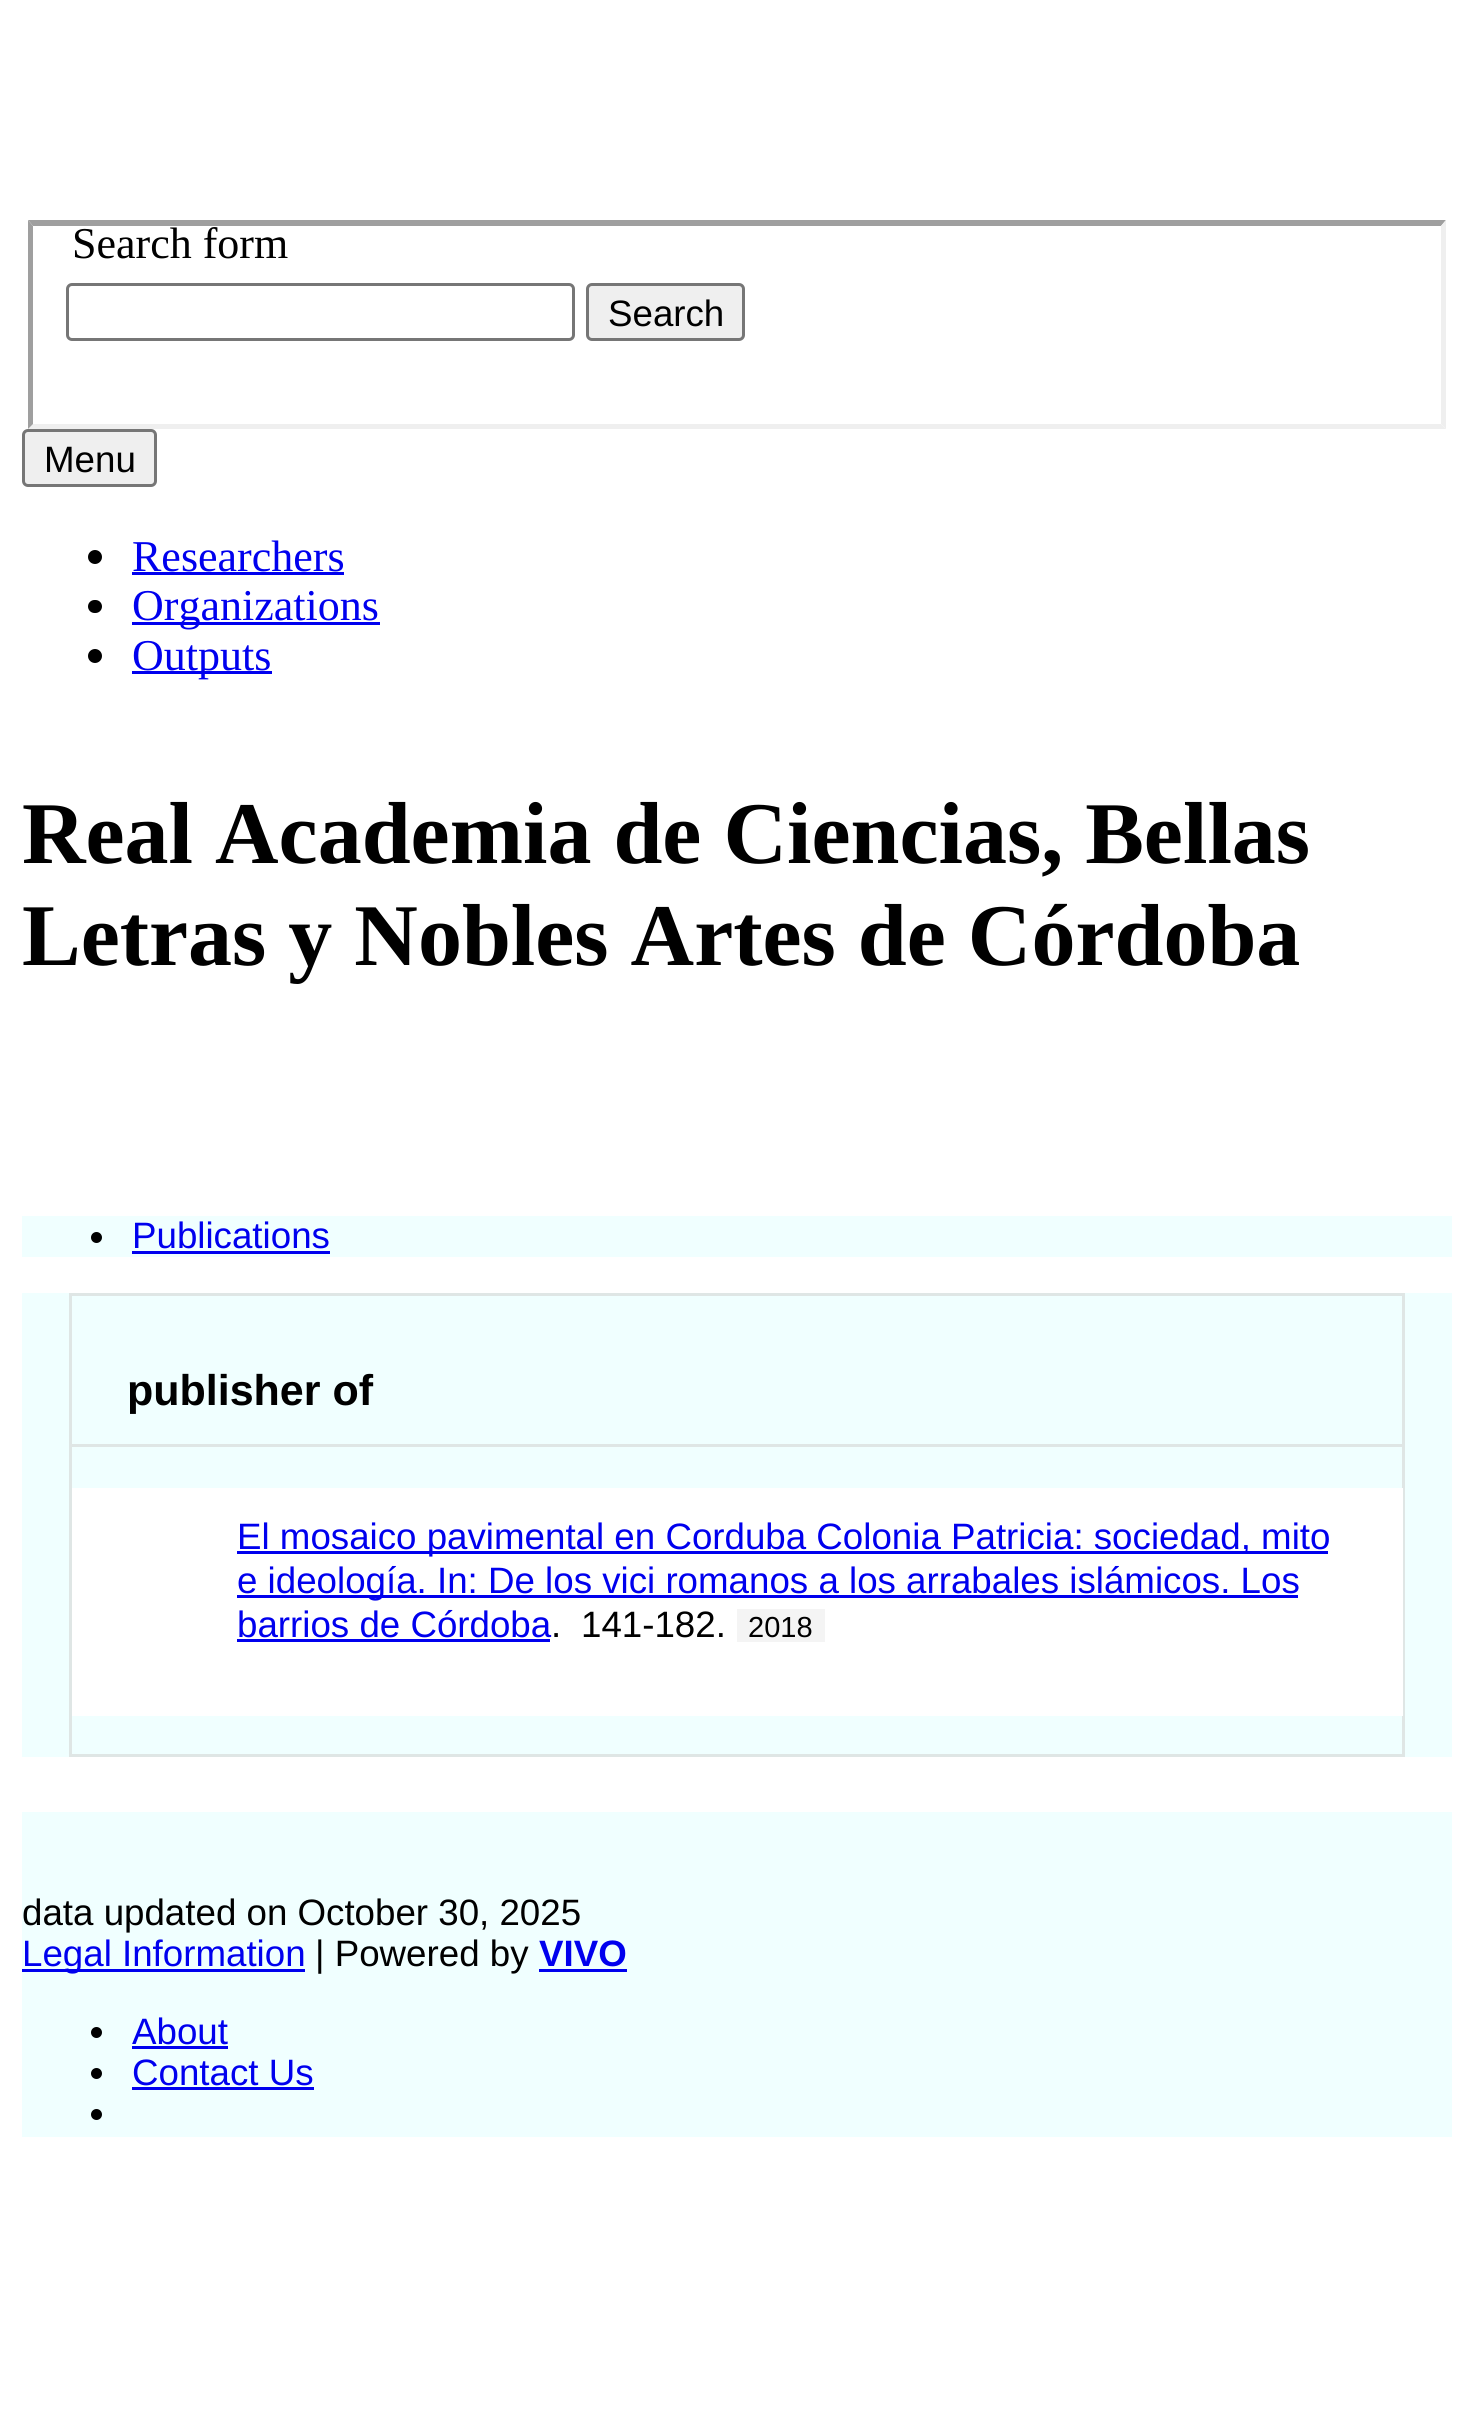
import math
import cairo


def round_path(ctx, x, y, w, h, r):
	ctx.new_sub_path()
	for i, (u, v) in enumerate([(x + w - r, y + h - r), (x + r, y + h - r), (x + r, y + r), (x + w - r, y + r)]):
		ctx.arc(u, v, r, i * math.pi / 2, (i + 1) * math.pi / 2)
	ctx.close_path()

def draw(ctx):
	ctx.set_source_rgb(1, 1, 1)
	ctx.paint()
	ctx.set_source_rgb(0.624, 0.624, 0.624)
	ctx.new_path()
	ctx.move_to(28, 220)
	ctx.line_to(1446, 220)
	ctx.line_to(1441, 226)
	ctx.line_to(33, 226)
	ctx.close_path()
	ctx.fill()
	ctx.set_source_rgb(0.937, 0.937, 0.937)
	ctx.new_path()
	ctx.move_to(1446, 220)
	ctx.line_to(1446, 429)
	ctx.line_to(1441, 424)
	ctx.line_to(1441, 226)
	ctx.close_path()
	ctx.fill()
	ctx.new_path()
	ctx.move_to(1446, 429)
	ctx.line_to(28, 429)
	ctx.line_to(33, 424)
	ctx.line_to(1441, 424)
	ctx.close_path()
	ctx.fill()
	ctx.set_source_rgb(0.624, 0.624, 0.624)
	ctx.new_path()
	ctx.move_to(28, 429)
	ctx.line_to(28, 220)
	ctx.line_to(33, 226)
	ctx.line_to(33, 424)
	ctx.close_path()
	ctx.fill()
	ctx.select_font_face('Liberation Serif')
	ctx.set_font_size(44)
	ctx.set_source_rgb(0, 0, 0)
	ctx.move_to(72, 258)
	ctx.show_text('Search form')
	round_path(ctx, 67.5, 284.5, 506, 55, 4.5)
	ctx.set_source_rgb(0.463, 0.463, 0.463)
	ctx.set_line_width(3)
	ctx.stroke()
	ctx.set_source_rgb(0.937, 0.937, 0.937)
	round_path(ctx, 587.5, 284.5, 156, 55, 4.5)
	ctx.fill_preserve()
	ctx.set_source_rgb(0.463, 0.463, 0.463)
	ctx.stroke()
	ctx.select_font_face('Liberation Sans')
	ctx.set_font_size(36.7)
	ctx.set_source_rgb(0, 0, 0)
	ctx.move_to(608, 326)
	ctx.show_text('Search')
	ctx.set_source_rgb(0.937, 0.937, 0.937)
	round_path(ctx, 23.5, 430.5, 132, 55, 4.5)
	ctx.fill_preserve()
	ctx.set_source_rgb(0.463, 0.463, 0.463)
	ctx.stroke()
	ctx.set_source_rgb(0, 0, 0)
	ctx.move_to(44, 472)
	ctx.show_text('Menu')
	ctx.new_path()
	ctx.arc(95, 557, 7, 0, 2 * math.pi)
	ctx.fill()
	ctx.select_font_face('Liberation Serif')
	ctx.set_font_size(44)
	ctx.set_source_rgb(0, 0, 0.933)
	ctx.move_to(132, 571)
	ctx.show_text('Researchers')
	ctx.rectangle(132, 572, 212, 3)
	ctx.fill()
	ctx.set_source_rgb(0, 0, 0)
	round_path(ctx, 88, 600, 14, 13, 6.5)
	ctx.fill()
	ctx.set_source_rgb(0, 0, 0.933)
	ctx.rectangle(132, 622, 248, 3)
	ctx.fill()
	ctx.move_to(132, 620)
	ctx.show_text('Organizations')
	ctx.set_source_rgb(0, 0, 0)
	ctx.new_path()
	ctx.arc(95, 656, 7, 0, 2 * math.pi)
	ctx.fill()
	ctx.set_source_rgb(0, 0, 0.933)
	ctx.rectangle(132, 671, 140, 3)
	ctx.fill()
	ctx.move_to(132, 670)
	ctx.show_text('Outputs')
	ctx.select_font_face('Liberation Serif', cairo.FONT_SLANT_NORMAL, cairo.FONT_WEIGHT_BOLD)
	ctx.set_font_size(88)
	ctx.set_source_rgb(0, 0, 0)
	ctx.move_to(22, 863)
	ctx.show_text('Real Academia de Ciencias, Bellas')
	ctx.move_to(22, 965)
	ctx.show_text('Letras y Nobles Artes de Córdoba')
	ctx.set_source_rgb(0.941, 1, 1)
	ctx.rectangle(22, 1216, 1430, 41)
	ctx.fill()
	ctx.set_source_rgb(0, 0, 0)
	ctx.arc(96.5, 1237.5, 5.5, 0, 2 * math.pi)
	ctx.fill()
	ctx.select_font_face('Liberation Sans')
	ctx.set_font_size(36.7)
	ctx.set_source_rgb(0, 0, 0.933)
	ctx.move_to(132, 1248)
	ctx.show_text('Publications')
	ctx.rectangle(132, 1251, 198, 3)
	ctx.fill()
	ctx.set_source_rgb(0.941, 1, 1)
	ctx.rectangle(22, 1293, 1430, 464)
	ctx.fill()
	ctx.rectangle(70.5, 1294.5, 1333, 461)
	ctx.set_source_rgb(0.875, 0.902, 0.898)
	ctx.stroke()
	ctx.rectangle(72, 1444, 1331, 3)
	ctx.fill()
	ctx.select_font_face('Liberation Sans', cairo.FONT_SLANT_NORMAL, cairo.FONT_WEIGHT_BOLD)
	ctx.set_font_size(43)
	ctx.set_source_rgb(0, 0, 0)
	ctx.move_to(127, 1405)
	ctx.show_text('publisher of')
	ctx.set_source_rgb(1, 1, 1)
	ctx.rectangle(72, 1488, 1331, 228)
	ctx.fill()
	ctx.set_source_rgb(0, 0, 0.933)
	ctx.rectangle(237, 1551, 1091, 3)
	ctx.fill()
	ctx.select_font_face('Liberation Sans')
	ctx.set_font_size(36.7)
	ctx.move_to(237, 1549)
	ctx.show_text('El mosaico pavimental en Corduba Colonia Patricia: sociedad, mito')
	ctx.rectangle(237, 1595, 1061, 3)
	ctx.fill()
	ctx.move_to(237, 1593)
	ctx.show_text('e ideología. In: De los vici romanos a los arrabales islámicos. Los')
	ctx.move_to(237, 1637)
	ctx.show_text('barrios de Córdoba')
	ctx.rectangle(237, 1639, 313, 3)
	ctx.fill()
	ctx.set_source_rgb(0, 0, 0)
	ctx.move_to(551, 1637)
	ctx.show_text('.')
	ctx.move_to(581, 1637)
	ctx.show_text('141-182.')
	ctx.set_source_rgb(0.957, 0.957, 0.957)
	ctx.rectangle(737, 1609, 88, 33)
	ctx.fill()
	ctx.set_font_size(29)
	ctx.set_source_rgb(0, 0, 0)
	ctx.move_to(748, 1637)
	ctx.show_text('2018')
	ctx.set_source_rgb(0.941, 1, 1)
	ctx.rectangle(22, 1812, 1430, 325)
	ctx.fill()
	ctx.set_font_size(36.7)
	ctx.set_source_rgb(0, 0, 0)
	ctx.move_to(22, 1925)
	ctx.show_text('data updated on October 30, 2025')
	ctx.set_source_rgb(0, 0, 0.933)
	ctx.rectangle(22, 1969, 283, 3)
	ctx.fill()
	ctx.move_to(22, 1966)
	ctx.show_text('Legal Information')
	ctx.set_source_rgb(0, 0, 0)
	ctx.move_to(315, 1966)
	ctx.show_text('| Powered by')
	ctx.select_font_face('Liberation Sans', cairo.FONT_SLANT_NORMAL, cairo.FONT_WEIGHT_BOLD)
	ctx.set_source_rgb(0, 0, 0.933)
	ctx.move_to(539, 1966)
	ctx.show_text('VIVO')
	ctx.rectangle(539, 1969, 88, 3)
	ctx.fill()
	ctx.set_source_rgb(0, 0, 0)
	ctx.arc(96.5, 2032.5, 5.5, 0, 2 * math.pi)
	ctx.fill()
	ctx.select_font_face('Liberation Sans')
	ctx.set_source_rgb(0, 0, 0.933)
	ctx.move_to(132, 2044)
	ctx.show_text('About')
	ctx.rectangle(132, 2046, 96, 3)
	ctx.fill()
	ctx.set_source_rgb(0, 0, 0)
	ctx.arc(96.5, 2073.5, 5.5, 0, 2 * math.pi)
	ctx.fill()
	ctx.set_source_rgb(0, 0, 0.933)
	ctx.move_to(132, 2085)
	ctx.show_text('Contact Us')
	ctx.rectangle(132, 2087, 182, 3)
	ctx.fill()
	ctx.set_source_rgb(0, 0, 0)
	ctx.arc(96.5, 2114.5, 5.5, 0, 2 * math.pi)
	ctx.fill()


surface = cairo.ImageSurface(cairo.FORMAT_RGB24, 1474, 2417)
ctx = cairo.Context(surface)
options = cairo.FontOptions()
options.set_hint_metrics(cairo.HINT_METRICS_OFF)
options.set_hint_style(cairo.HINT_STYLE_NONE)
ctx.set_font_options(options)
ctx.set_miter_limit(4)
draw(ctx)
surface.write_to_png('image.png')
